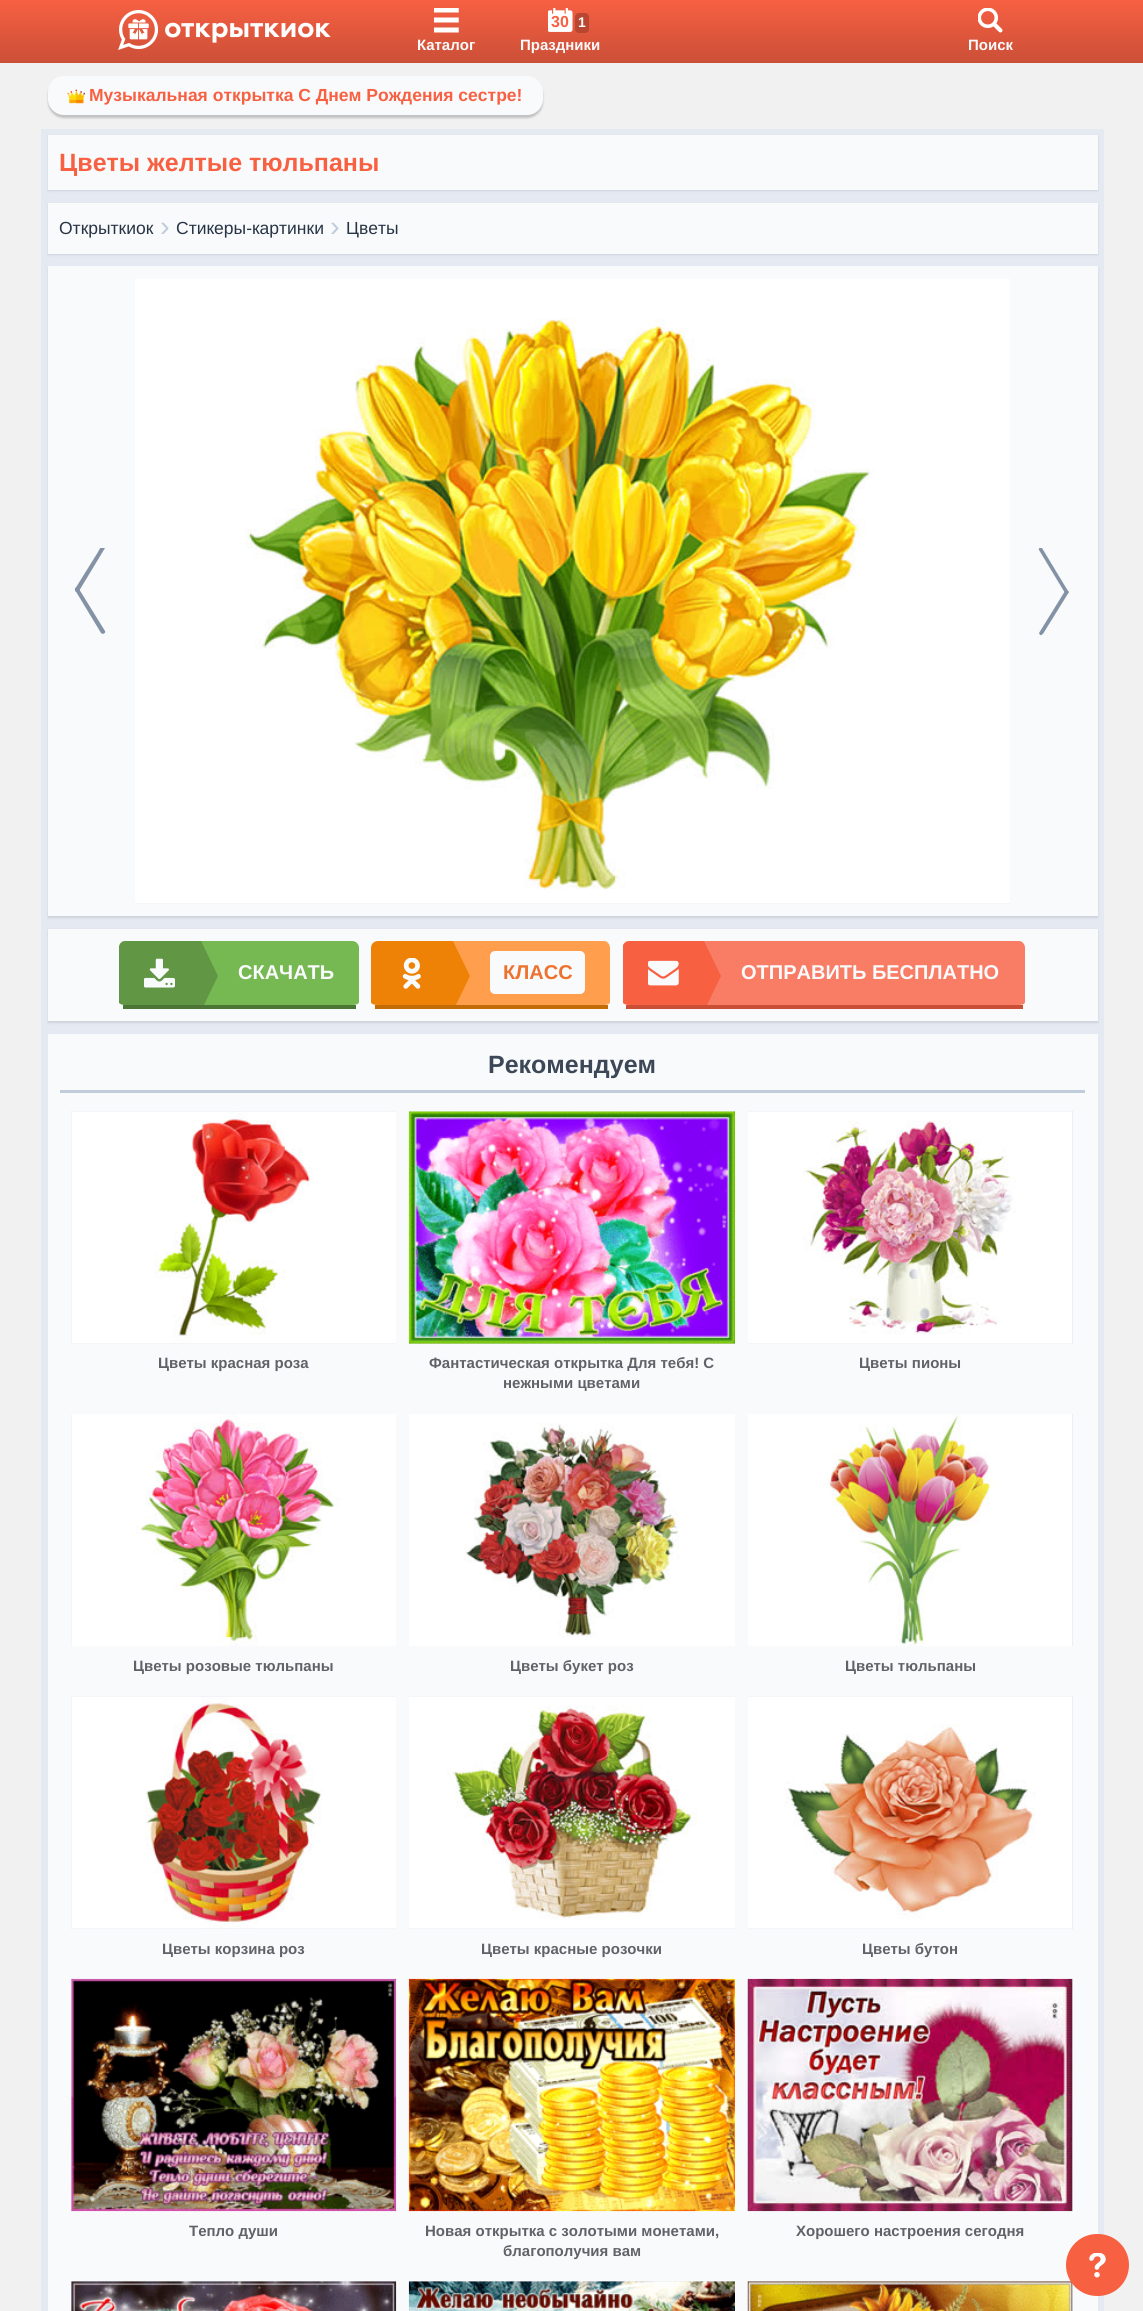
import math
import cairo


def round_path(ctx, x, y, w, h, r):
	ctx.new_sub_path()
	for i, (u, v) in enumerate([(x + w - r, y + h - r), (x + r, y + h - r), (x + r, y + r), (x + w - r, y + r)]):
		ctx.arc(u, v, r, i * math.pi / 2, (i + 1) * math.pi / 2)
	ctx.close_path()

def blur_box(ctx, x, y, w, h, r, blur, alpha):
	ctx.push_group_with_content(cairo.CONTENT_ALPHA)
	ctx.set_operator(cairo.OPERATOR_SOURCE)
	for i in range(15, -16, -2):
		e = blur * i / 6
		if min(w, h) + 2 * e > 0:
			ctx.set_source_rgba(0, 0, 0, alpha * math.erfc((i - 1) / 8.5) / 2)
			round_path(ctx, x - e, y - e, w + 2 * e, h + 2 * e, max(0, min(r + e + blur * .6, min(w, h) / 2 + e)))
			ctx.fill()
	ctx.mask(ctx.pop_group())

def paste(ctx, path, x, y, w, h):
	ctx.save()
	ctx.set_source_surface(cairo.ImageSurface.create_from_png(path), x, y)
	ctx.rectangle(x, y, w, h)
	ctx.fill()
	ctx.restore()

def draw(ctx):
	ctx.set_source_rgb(0.945, 0.945, 0.945)
	ctx.paint()
	gradient = cairo.LinearGradient(572, 0, 572, 63)
	gradient.add_color_stop_rgba(0, 0.969, 0.376, 0.259, 1)
	gradient.add_color_stop_rgba(1, 0.796, 0.31, 0.216, 1)
	ctx.set_source(gradient)
	ctx.rectangle(0, 0, 1143, 63)
	ctx.fill()
	paste(ctx, 'media/1.png', 118, 10, 213, 40)
	paste(ctx, 'media/2.png', 434, 8, 25, 25)
	ctx.select_font_face('Liberation Sans', cairo.FONT_SLANT_NORMAL, cairo.FONT_WEIGHT_BOLD)
	ctx.set_font_size(15)
	ctx.set_source_rgb(0.976, 0.98, 0.988)
	ctx.move_to(417, 50)
	ctx.show_text('Каталог')
	paste(ctx, 'media/3.png', 548, 8, 25, 24)
	ctx.set_font_size(16)
	ctx.set_source_rgb(0.969, 0.376, 0.259)
	ctx.move_to(551, 27)
	ctx.show_text('30')
	ctx.set_source_rgb(0.725, 0.275, 0.188)
	round_path(ctx, 575, 13, 14, 20, 4)
	ctx.fill()
	ctx.set_font_size(14)
	ctx.set_source_rgb(0.976, 0.98, 0.988)
	ctx.move_to(578, 27)
	ctx.show_text('1')
	ctx.set_font_size(15)
	ctx.move_to(520, 50)
	ctx.show_text('Праздники')
	paste(ctx, 'media/4.png', 978, 8, 25, 25)
	ctx.move_to(968, 50)
	ctx.show_text('Поиск')
	ctx.set_source_rgb(0, 0, 0)
	blur_box(ctx, 48, 79, 495, 39, 16, 1, 0.2)
	ctx.set_source_rgb(0.976, 0.98, 0.988)
	round_path(ctx, 48, 76, 495, 39, 16)
	ctx.fill()
	paste(ctx, 'media/5.png', 67, 89, 18, 15)
	ctx.set_font_size(17.5)
	ctx.set_source_rgb(0.969, 0.376, 0.259)
	ctx.move_to(89, 101)
	ctx.show_text('Музыкальная открытка С Днем Рождения сестре!')
	ctx.set_source_rgb(0.898, 0.914, 0.949)
	ctx.rectangle(41, 129, 1063, 2182)
	ctx.fill()
	ctx.set_source_rgb(0, 0, 0)
	blur_box(ctx, 48, 136, 1050, 55, 0, 1, 0.1)
	ctx.set_source_rgb(0.976, 0.98, 0.988)
	ctx.rectangle(48, 135, 1050, 55)
	ctx.fill()
	ctx.set_font_size(25)
	ctx.set_source_rgb(0.969, 0.376, 0.259)
	ctx.move_to(59, 171)
	ctx.show_text('Цветы желтые тюльпаны')
	ctx.set_source_rgb(0, 0, 0)
	blur_box(ctx, 48, 204, 1050, 51, 0, 1, 0.1)
	ctx.set_source_rgb(0.976, 0.98, 0.988)
	ctx.rectangle(48, 203, 1050, 51)
	ctx.fill()
	ctx.select_font_face('Liberation Sans')
	ctx.set_font_size(17.5)
	ctx.set_source_rgb(0.153, 0.204, 0.267)
	ctx.move_to(59, 234)
	ctx.show_text('Открыткиок')
	ctx.set_font_size(29)
	ctx.set_source_rgb(0.753, 0.8, 0.855)
	ctx.move_to(160, 236)
	ctx.show_text('›')
	ctx.set_font_size(17.5)
	ctx.set_source_rgb(0.153, 0.204, 0.267)
	ctx.move_to(176, 234)
	ctx.show_text('Стикеры-картинки')
	ctx.set_font_size(29)
	ctx.set_source_rgb(0.753, 0.8, 0.855)
	ctx.move_to(330, 236)
	ctx.show_text('›')
	ctx.set_font_size(17.5)
	ctx.set_source_rgb(0.153, 0.204, 0.267)
	ctx.move_to(346, 234)
	ctx.show_text('Цветы')
	ctx.set_source_rgb(0, 0, 0)
	blur_box(ctx, 48, 268, 1050, 650, 0, 1, 0.1)
	ctx.set_source_rgb(0.976, 0.98, 0.988)
	ctx.rectangle(48, 266, 1050, 650)
	ctx.fill()
	ctx.set_source_rgb(0.518, 0.573, 0.651)
	ctx.new_path()
	ctx.move_to(105, 631)
	ctx.line_to(79, 589)
	ctx.curve_to(77, 586, 74, 588, 75, 590)
	ctx.line_to(101, 633)
	ctx.curve_to(103, 635, 106, 633, 105, 631)
	ctx.close_path()
	ctx.fill()
	ctx.save()
	ctx.rectangle(54, 548, 75, 87)
	ctx.clip()
	ctx.new_path()
	ctx.move_to(79, 591)
	ctx.line_to(105, 548)
	ctx.line_to(104, 546)
	ctx.curve_to(101, 545, 98, 552, 98, 552)
	ctx.line_to(75, 589)
	ctx.line_to(75, 591)
	ctx.curve_to(76, 592, 78, 592, 79, 591)
	ctx.close_path()
	ctx.fill()
	ctx.restore()
	ctx.set_source_rgb(0.898, 0.914, 0.949)
	ctx.rectangle(135, 903, 875, 1)
	ctx.fill()
	paste(ctx, 'media/6.png', 135, 279, 875, 625)
	ctx.save()
	ctx.rectangle(1016, 548, 75, 87)
	ctx.clip()
	ctx.set_source_rgb(0.518, 0.573, 0.651)
	ctx.new_path()
	ctx.move_to(1039, 550)
	ctx.line_to(1065, 593)
	ctx.curve_to(1066, 595, 1070, 593, 1068, 591)
	ctx.line_to(1042, 548)
	ctx.curve_to(1041, 546, 1038, 548, 1039, 550)
	ctx.close_path()
	ctx.fill()
	ctx.restore()
	ctx.set_source_rgb(0.518, 0.573, 0.651)
	ctx.new_path()
	ctx.move_to(1065, 591)
	ctx.line_to(1039, 633)
	ctx.line_to(1040, 635)
	ctx.curve_to(1043, 636, 1045, 630, 1046, 629)
	ctx.line_to(1069, 592)
	ctx.line_to(1068, 591)
	ctx.curve_to(1067, 590, 1066, 590, 1065, 591)
	ctx.close_path()
	ctx.fill()
	ctx.set_source_rgb(0, 0, 0)
	blur_box(ctx, 48, 930, 1050, 93, 0, 1, 0.1)
	ctx.set_source_rgb(0.976, 0.98, 0.988)
	ctx.rectangle(48, 929, 1050, 92)
	ctx.fill()
	ctx.set_source_rgb(0.298, 0.463, 0.208)
	ctx.rectangle(123, 1005, 233, 4)
	ctx.fill()
	ctx.set_source_rgb(0.38, 0.592, 0.267)
	ctx.new_path()
	ctx.move_to(125, 941)
	ctx.line_to(200, 941)
	ctx.line_to(200, 1005)
	ctx.line_to(125, 1005)
	ctx.curve_to(122, 1005, 120, 1004, 119, 1003)
	ctx.line_to(119, 946)
	ctx.curve_to(120, 943, 122, 941, 125, 941)
	ctx.close_path()
	ctx.fill()
	paste(ctx, 'media/7.png', 144, 958, 31, 30)
	ctx.set_source_rgb(0.463, 0.722, 0.322)
	ctx.new_path()
	ctx.move_to(200, 1005)
	ctx.line_to(352, 1005)
	ctx.curve_to(356, 1005, 359, 1004, 359, 1002)
	ctx.line_to(359, 948)
	ctx.curve_to(359, 944, 356, 941, 352, 941)
	ctx.line_to(200, 941)
	ctx.close_path()
	ctx.fill()
	ctx.set_source_rgb(0.38, 0.592, 0.267)
	ctx.new_path()
	ctx.move_to(201, 941)
	ctx.line_to(218, 976)
	ctx.line_to(204, 1005)
	ctx.line_to(192, 1005)
	ctx.line_to(192, 941)
	ctx.close_path()
	ctx.fill()
	ctx.select_font_face('Liberation Sans', cairo.FONT_SLANT_NORMAL, cairo.FONT_WEIGHT_BOLD)
	ctx.set_font_size(20)
	ctx.set_source_rgb(0.976, 0.98, 0.988)
	ctx.move_to(238, 979)
	ctx.show_text('СКАЧАТЬ')
	ctx.set_source_rgb(0.765, 0.42, 0.027)
	ctx.rectangle(375, 1005, 233, 4)
	ctx.fill()
	ctx.set_source_rgb(0.933, 0.51, 0.031)
	ctx.new_path()
	ctx.move_to(378, 941)
	ctx.curve_to(374, 941, 371, 944, 371, 948)
	ctx.line_to(371, 1002)
	ctx.curve_to(371, 1004, 374, 1005, 378, 1005)
	ctx.line_to(453, 1005)
	ctx.line_to(453, 941)
	ctx.close_path()
	ctx.fill()
	paste(ctx, 'media/8.png', 402, 958, 19, 31)
	ctx.set_source_rgb(1, 0.624, 0.302)
	ctx.new_path()
	ctx.move_to(453, 1005)
	ctx.line_to(604, 1005)
	ctx.curve_to(607, 1005, 610, 1004, 610, 1002)
	ctx.line_to(610, 948)
	ctx.curve_to(610, 944, 607, 941, 604, 941)
	ctx.line_to(453, 941)
	ctx.close_path()
	ctx.fill()
	ctx.set_source_rgb(0.933, 0.51, 0.031)
	ctx.new_path()
	ctx.move_to(453, 941)
	ctx.line_to(470, 976)
	ctx.line_to(456, 1005)
	ctx.line_to(445, 1005)
	ctx.line_to(445, 941)
	ctx.close_path()
	ctx.fill()
	ctx.set_source_rgb(0.976, 0.98, 0.988)
	round_path(ctx, 490, 951, 95, 43, 5)
	ctx.fill()
	ctx.set_source_rgb(0.922, 0.447, 0.18)
	ctx.move_to(503, 979)
	ctx.show_text('КЛАСС')
	ctx.set_source_rgb(0.796, 0.31, 0.216)
	ctx.rectangle(626, 1005, 397, 4)
	ctx.fill()
	ctx.set_source_rgb(0.969, 0.376, 0.259)
	ctx.new_path()
	ctx.move_to(629, 941)
	ctx.line_to(704, 941)
	ctx.line_to(704, 1005)
	ctx.line_to(629, 1005)
	ctx.curve_to(626, 1005, 624, 1004, 623, 1003)
	ctx.line_to(623, 945)
	ctx.curve_to(624, 943, 626, 941, 629, 941)
	ctx.close_path()
	ctx.fill()
	paste(ctx, 'media/9.png', 648, 960, 31, 26)
	ctx.set_source_rgb(0.973, 0.486, 0.392)
	ctx.new_path()
	ctx.move_to(704, 1005)
	ctx.line_to(1019, 1005)
	ctx.curve_to(1022, 1005, 1025, 1004, 1025, 1002)
	ctx.line_to(1025, 948)
	ctx.curve_to(1025, 944, 1022, 941, 1019, 941)
	ctx.line_to(704, 941)
	ctx.close_path()
	ctx.fill()
	ctx.set_source_rgb(0.969, 0.376, 0.259)
	ctx.new_path()
	ctx.move_to(704, 941)
	ctx.line_to(721, 976)
	ctx.line_to(707, 1005)
	ctx.line_to(696, 1005)
	ctx.line_to(696, 941)
	ctx.close_path()
	ctx.fill()
	ctx.set_source_rgb(0.976, 0.98, 0.988)
	ctx.move_to(741, 979)
	ctx.show_text('ОТПРАВИТЬ БЕСПЛАТНО')
	ctx.rectangle(48, 1034, 1050, 1277)
	ctx.fill()
	ctx.set_source_rgb(0.753, 0.8, 0.855)
	ctx.rectangle(60, 1090, 1025, 3)
	ctx.fill()
	ctx.set_font_size(25)
	ctx.set_source_rgb(0.235, 0.282, 0.345)
	ctx.move_to(488, 1073)
	ctx.show_text('Рекомендуем')
	ctx.set_source_rgb(0.898, 0.914, 0.949)
	ctx.rectangle(71, 1111, 325, 233)
	ctx.fill()
	paste(ctx, 'media/10.png', 71, 1111, 325, 233)
	ctx.set_font_size(15)
	ctx.set_source_rgb(0.373, 0.388, 0.408)
	ctx.move_to(158, 1368)
	ctx.show_text('Цветы красная роза')
	ctx.set_source_rgb(0.898, 0.914, 0.949)
	ctx.rectangle(409, 1111, 326, 233)
	ctx.fill()
	paste(ctx, 'media/11.png', 408, 1111, 327, 233)
	ctx.set_source_rgb(0.373, 0.388, 0.408)
	ctx.move_to(429, 1368)
	ctx.show_text('Фантастическая открытка Для тебя! С')
	ctx.move_to(503, 1388)
	ctx.show_text('нежными цветами')
	ctx.set_source_rgb(0.898, 0.914, 0.949)
	ctx.rectangle(748, 1111, 325, 233)
	ctx.fill()
	paste(ctx, 'media/12.png', 748, 1111, 325, 233)
	ctx.set_source_rgb(0.373, 0.388, 0.408)
	ctx.move_to(859, 1368)
	ctx.show_text('Цветы пионы')
	ctx.set_source_rgb(0.898, 0.914, 0.949)
	ctx.rectangle(71, 1414, 1, 232)
	ctx.fill()
	paste(ctx, 'media/13.png', 71, 1414, 325, 232)
	ctx.set_source_rgb(0.373, 0.388, 0.408)
	ctx.move_to(133, 1671)
	ctx.show_text('Цветы розовые тюльпаны')
	paste(ctx, 'media/14.png', 409, 1414, 326, 232)
	ctx.move_to(510, 1671)
	ctx.show_text('Цветы букет роз')
	ctx.set_source_rgb(0.898, 0.914, 0.949)
	ctx.rectangle(1072, 1414, 1, 232)
	ctx.fill()
	paste(ctx, 'media/15.png', 748, 1414, 325, 232)
	ctx.set_source_rgb(0.373, 0.388, 0.408)
	ctx.move_to(845, 1671)
	ctx.show_text('Цветы тюльпаны')
	ctx.set_source_rgb(0.898, 0.914, 0.949)
	ctx.rectangle(71, 1696, 325, 233)
	ctx.fill()
	paste(ctx, 'media/16.png', 71, 1696, 325, 233)
	ctx.set_source_rgb(0.373, 0.388, 0.408)
	ctx.move_to(162, 1954)
	ctx.show_text('Цветы корзина роз')
	ctx.set_source_rgb(0.898, 0.914, 0.949)
	ctx.rectangle(409, 1696, 326, 233)
	ctx.fill()
	paste(ctx, 'media/17.png', 409, 1696, 326, 233)
	ctx.set_source_rgb(0.373, 0.388, 0.408)
	ctx.move_to(481, 1954)
	ctx.show_text('Цветы красные розочки')
	ctx.set_source_rgb(0.898, 0.914, 0.949)
	ctx.rectangle(748, 1696, 325, 233)
	ctx.fill()
	paste(ctx, 'media/18.png', 748, 1696, 325, 233)
	ctx.set_source_rgb(0.373, 0.388, 0.408)
	ctx.move_to(862, 1954)
	ctx.show_text('Цветы бутон')
	ctx.set_source_rgb(0.898, 0.914, 0.949)
	ctx.rectangle(71, 1979, 1, 232)
	ctx.fill()
	paste(ctx, 'media/19.png', 71, 1978, 326, 234)
	ctx.set_source_rgb(0.373, 0.388, 0.408)
	ctx.move_to(189, 2236)
	ctx.show_text('Тепло души')
	paste(ctx, 'media/20.png', 408, 1978, 327, 234)
	ctx.move_to(425, 2236)
	ctx.show_text('Новая открытка с золотыми монетами,')
	ctx.move_to(503, 2256)
	ctx.show_text('благополучия вам')
	ctx.set_source_rgb(0.898, 0.914, 0.949)
	ctx.rectangle(1072, 1979, 1, 232)
	ctx.fill()
	paste(ctx, 'media/21.png', 747, 1978, 326, 234)
	ctx.set_source_rgb(0.373, 0.388, 0.408)
	ctx.move_to(796, 2236)
	ctx.show_text('Хорошего настроения сегодня')
	ctx.set_source_rgb(0.898, 0.914, 0.949)
	ctx.rectangle(71, 2281, 325, 30)
	ctx.fill()
	paste(ctx, 'media/22.png', 71, 2281, 326, 30)
	ctx.rectangle(409, 2281, 326, 1)
	ctx.fill()
	paste(ctx, 'media/23.png', 408, 2281, 327, 30)
	ctx.rectangle(748, 2281, 325, 30)
	ctx.fill()
	paste(ctx, 'media/24.png', 747, 2281, 326, 30)
	ctx.set_source_rgb(0.969, 0.376, 0.259)
	round_path(ctx, 1066, 2234, 63, 62, 31)
	ctx.fill()
	paste(ctx, 'media/25.png', 1089, 2253, 17, 25)


surface = cairo.ImageSurface(cairo.FORMAT_RGB24, 1143, 2311)
ctx = cairo.Context(surface)
options = cairo.FontOptions()
options.set_hint_metrics(cairo.HINT_METRICS_OFF)
options.set_hint_style(cairo.HINT_STYLE_NONE)
ctx.set_font_options(options)
ctx.set_miter_limit(4)
draw(ctx)
surface.write_to_png('image.png')
